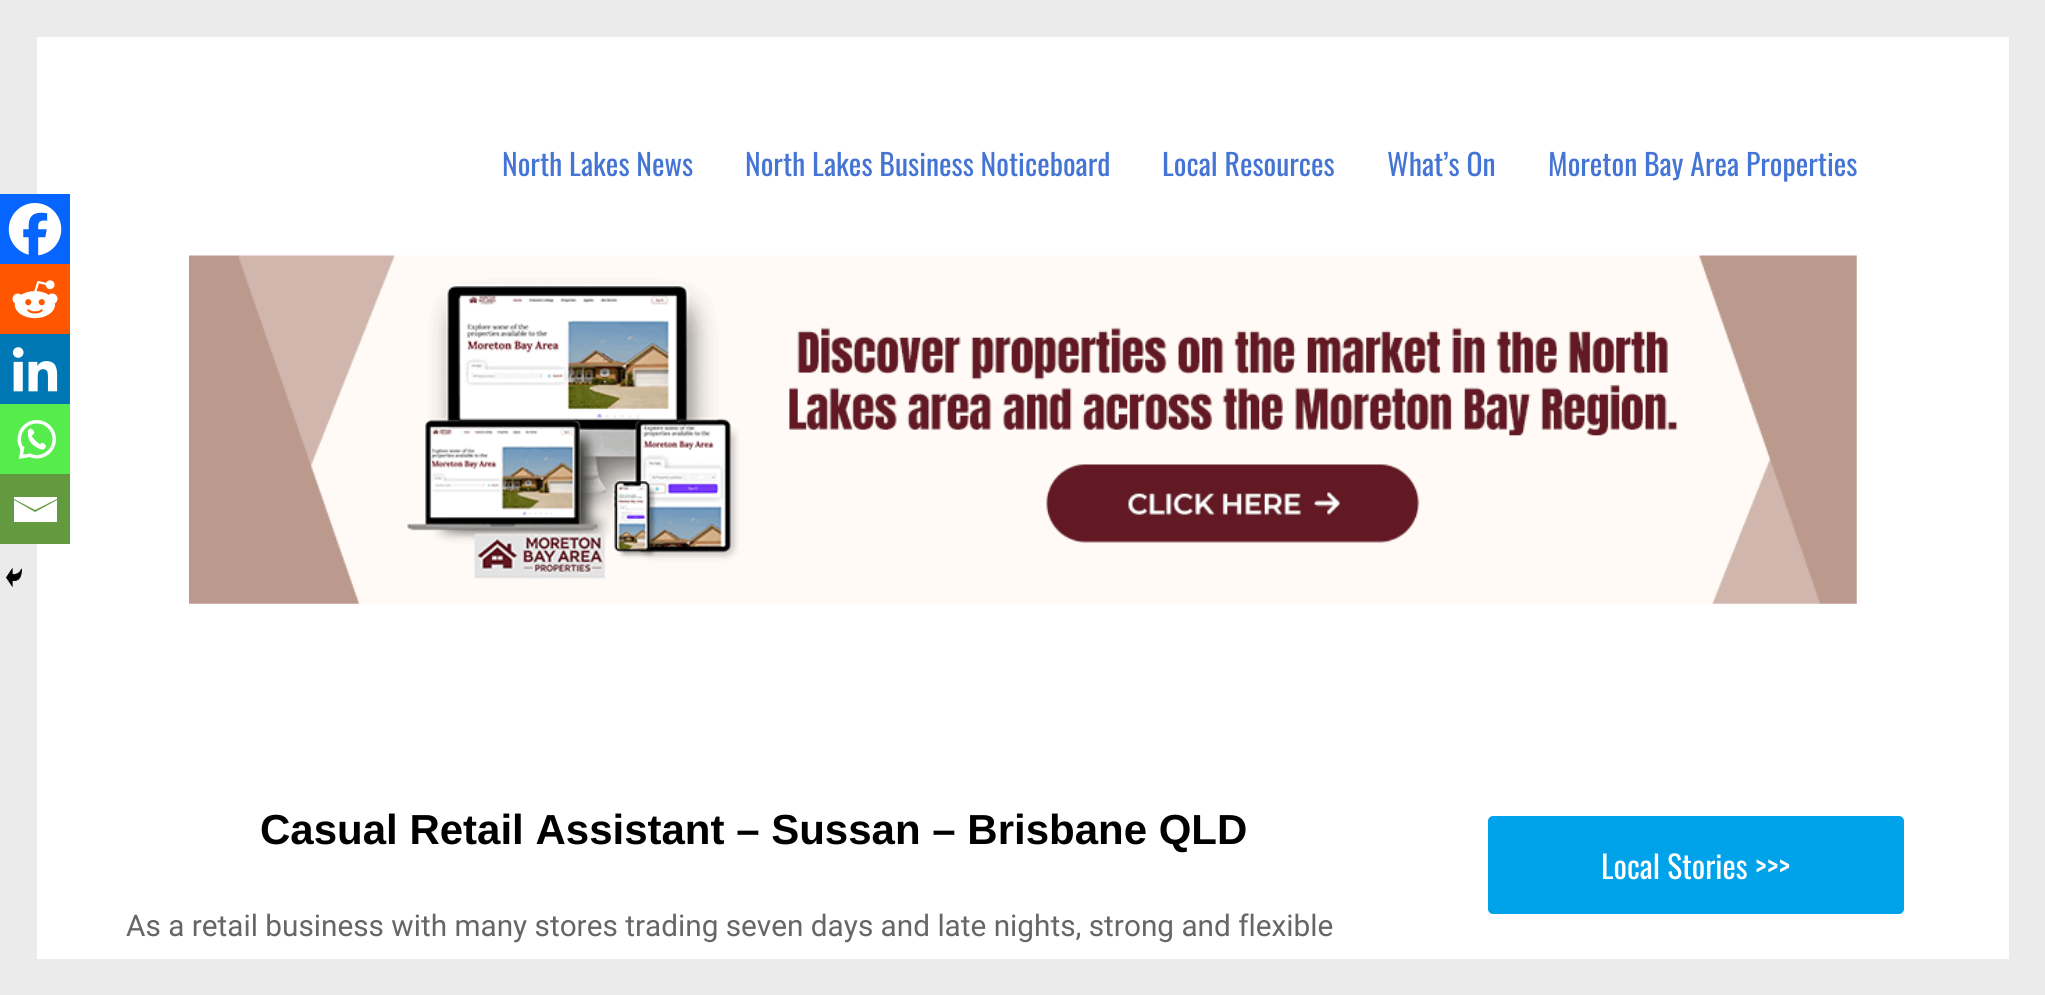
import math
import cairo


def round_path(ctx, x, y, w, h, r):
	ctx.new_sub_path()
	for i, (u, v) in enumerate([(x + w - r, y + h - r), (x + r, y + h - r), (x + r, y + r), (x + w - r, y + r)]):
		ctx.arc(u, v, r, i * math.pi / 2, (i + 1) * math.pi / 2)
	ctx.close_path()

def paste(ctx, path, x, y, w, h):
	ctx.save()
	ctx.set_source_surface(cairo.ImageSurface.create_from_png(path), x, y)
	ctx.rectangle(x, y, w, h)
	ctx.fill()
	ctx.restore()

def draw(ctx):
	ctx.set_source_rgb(0.918, 0.918, 0.918)
	ctx.paint()
	ctx.set_source_rgb(1, 1, 1)
	ctx.rectangle(37, 37, 1972, 922)
	ctx.fill()
	ctx.select_font_face('Oswald')
	ctx.set_font_size(29.75)
	ctx.set_source_rgb(0.271, 0.459, 0.831)
	for x, y, s in [
		(502, 176, 'North Lakes News'),
		(745, 176, 'North Lakes Business Noticeboard'),
		(1162, 176, 'Local Resources'),
		(1387, 176, 'What’s On'),
		(1548, 176, 'Moreton Bay Area Properties'),
	]:
		ctx.move_to(x, y)
		ctx.show_text(s)
	paste(ctx, 'media/1.png', 189, 255, 1668, 349)
	ctx.select_font_face('Liberation Sans', cairo.FONT_SLANT_NORMAL, cairo.FONT_WEIGHT_BOLD)
	ctx.set_font_size(42)
	ctx.set_source_rgb(0, 0, 0)
	ctx.move_to(260, 844)
	ctx.show_text('Casual Retail Assistant – Sussan – Brisbane QLD')
	ctx.set_source_rgb(0.027, 0.396, 0.996)
	ctx.rectangle(0, 194, 70, 70)
	ctx.fill()
	paste(ctx, 'media/2.png', 8, 203, 54, 53)
	ctx.set_source_rgb(1, 0.341, 0)
	ctx.rectangle(0, 264, 70, 70)
	ctx.fill()
	paste(ctx, 'media/3.png', 12, 280, 46, 39)
	ctx.set_source_rgb(0, 0.467, 0.71)
	ctx.rectangle(0, 334, 70, 70)
	ctx.fill()
	paste(ctx, 'media/4.png', 12, 347, 46, 45)
	ctx.set_source_rgb(0.333, 0.922, 0.298)
	ctx.rectangle(0, 404, 70, 70)
	ctx.fill()
	paste(ctx, 'media/5.png', 17, 420, 39, 39)
	ctx.set_source_rgb(0.392, 0.604, 0.247)
	ctx.rectangle(0, 474, 70, 70)
	ctx.fill()
	ctx.set_source_rgb(1, 1, 1)
	ctx.new_path()
	ctx.move_to(12, 497)
	ctx.line_to(57, 497)
	ctx.line_to(57, 499)
	ctx.line_to(35, 510)
	ctx.line_to(14, 499)
	ctx.line_to(14, 497)
	ctx.move_to(14, 500)
	ctx.line_to(35, 512)
	ctx.line_to(57, 500)
	ctx.line_to(57, 522)
	ctx.line_to(14, 522)
	ctx.line_to(14, 500)
	ctx.fill()
	paste(ctx, 'media/6.png', 6, 567, 16, 21)
	ctx.select_font_face('Roboto')
	ctx.set_font_size(29.75)
	ctx.set_source_rgb(0.4, 0.4, 0.4)
	ctx.move_to(126, 936)
	ctx.show_text('As a retail business with many stores trading seven days and late nights, strong and flexible')
	ctx.set_source_rgb(0, 0.635, 0.914)
	round_path(ctx, 1488, 816, 416, 98, 5)
	ctx.fill()
	ctx.select_font_face('Oswald')
	ctx.set_font_size(31.5)
	ctx.set_source_rgb(1, 1, 1)
	ctx.move_to(1601, 879)
	ctx.show_text('Local Stories >>>')


surface = cairo.ImageSurface(cairo.FORMAT_RGB24, 2045, 995)
ctx = cairo.Context(surface)
options = cairo.FontOptions()
options.set_hint_metrics(cairo.HINT_METRICS_OFF)
options.set_hint_style(cairo.HINT_STYLE_NONE)
ctx.set_font_options(options)
ctx.set_miter_limit(4)
draw(ctx)
surface.write_to_png('image.png')
